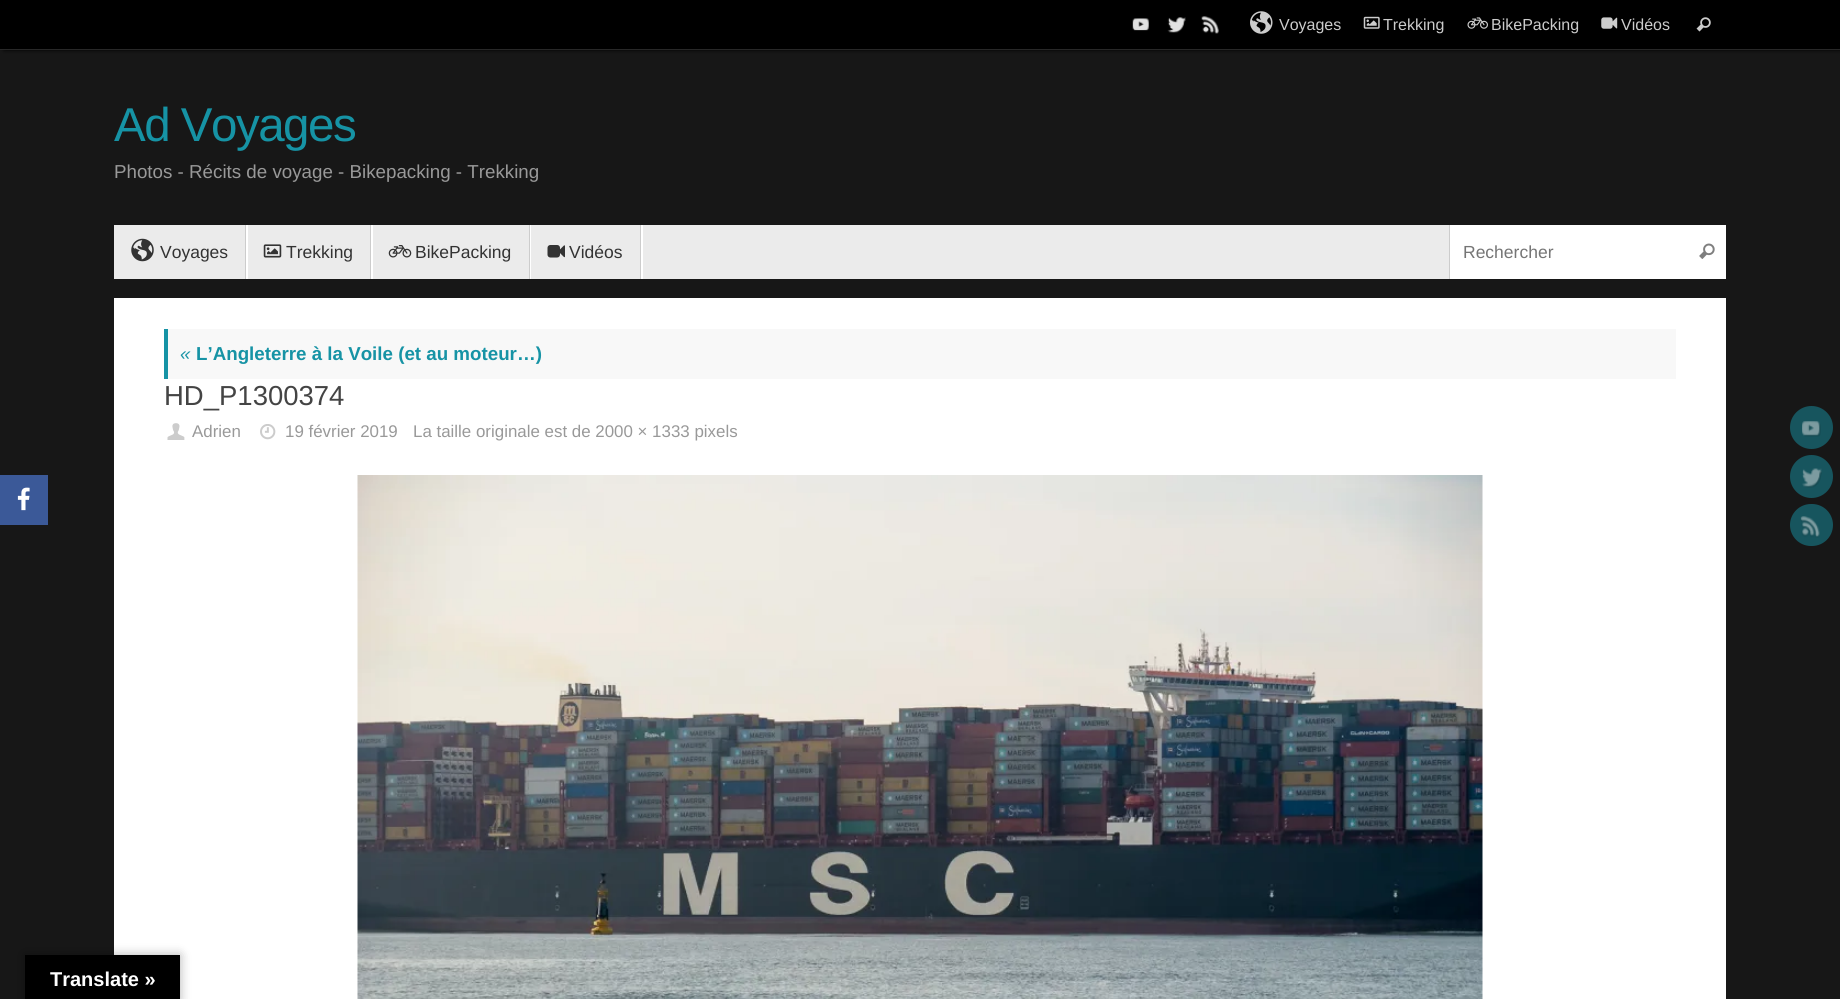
import math
import cairo


def write_spaced(ctx, x, y, s, letter, word):
	ctx.move_to(x, y)
	for ch in s:
		ctx.show_text(ch)
		ctx.rel_move_to(letter + word * (ch == ' '), 0)

def round_path(ctx, x, y, w, h, r):
	ctx.new_sub_path()
	for i, (u, v) in enumerate([(x + w - r, y + h - r), (x + r, y + h - r), (x + r, y + r), (x + w - r, y + r)]):
		ctx.arc(u, v, r, i * math.pi / 2, (i + 1) * math.pi / 2)
	ctx.close_path()

def blur_box(ctx, x, y, w, h, r, blur, alpha):
	ctx.push_group_with_content(cairo.CONTENT_ALPHA)
	ctx.set_operator(cairo.OPERATOR_SOURCE)
	for i in range(15, -16, -2):
		e = blur * i / 6
		if min(w, h) + 2 * e > 0:
			ctx.set_source_rgba(0, 0, 0, alpha * math.erfc((i - 1) / 8.5) / 2)
			round_path(ctx, x - e, y - e, w + 2 * e, h + 2 * e, max(0, min(r + e + blur * .6, min(w, h) / 2 + e)))
			ctx.fill()
	ctx.mask(ctx.pop_group())

def paste(ctx, path, x, y, w, h):
	ctx.save()
	ctx.set_source_surface(cairo.ImageSurface.create_from_png(path), x, y)
	ctx.rectangle(x, y, w, h)
	ctx.fill()
	ctx.restore()

def draw(ctx):
	ctx.set_source_rgb(0.09, 0.09, 0.09)
	ctx.paint()
	ctx.set_source_rgb(0, 0, 0)
	blur_box(ctx, 4, 0, 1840, 50, 0, 2, 1)
	ctx.set_source_rgb(0, 0, 0)
	ctx.rectangle(0, 0, 1840, 49)
	ctx.fill()
	ctx.set_source_rgb(0.157, 0.157, 0.157)
	ctx.rectangle(0, 49, 1840, 1)
	ctx.fill()
	paste(ctx, 'media/1.png', 1132, 18, 17, 13)
	paste(ctx, 'media/2.png', 1167, 17, 19, 16)
	paste(ctx, 'media/3.png', 1201, 16, 18, 18)
	paste(ctx, 'media/4.png', 1250, 11, 23, 23)
	ctx.select_font_face('Liberation Sans')
	ctx.set_font_size(16)
	ctx.set_source_rgb(0.8, 0.8, 0.8)
	ctx.move_to(1279, 30)
	ctx.show_text('Voyages')
	paste(ctx, 'media/5.png', 1363, 16, 17, 13)
	ctx.move_to(1383, 30)
	ctx.show_text('Trekking')
	paste(ctx, 'media/6.png', 1467, 17, 21, 12)
	ctx.move_to(1491, 30)
	ctx.show_text('BikePacking')
	paste(ctx, 'media/7.png', 1601, 17, 17, 12)
	ctx.move_to(1621, 30)
	ctx.show_text('Vidéos')
	paste(ctx, 'media/8.png', 1696, 17, 15, 15)
	ctx.set_font_size(47.5)
	ctx.set_source_rgb(0.086, 0.576, 0.647)
	write_spaced(ctx, 114, 141, 'Ad Voyages', -1.5, 0)
	ctx.set_font_size(18.75)
	ctx.set_source_rgb(0.6, 0.6, 0.6)
	ctx.move_to(114, 178)
	ctx.show_text('Photos - Récits de voyage - Bikepacking - Trekking')
	ctx.set_source_rgb(0.918, 0.918, 0.918)
	ctx.rectangle(114, 225, 1335, 54)
	ctx.fill()
	ctx.set_source_rgb(1, 1, 1)
	ctx.new_path()
	ctx.move_to(115, 279)
	ctx.line_to(248, 279)
	ctx.line_to(248, 225)
	ctx.line_to(246, 225)
	ctx.line_to(246, 279)
	ctx.close_path()
	ctx.fill()
	ctx.set_source_rgb(0.8, 0.8, 0.8)
	ctx.rectangle(245, 225, 1, 54)
	ctx.fill()
	paste(ctx, 'media/9.png', 131, 238, 23, 24)
	ctx.set_font_size(17.5)
	ctx.set_source_rgb(0.2, 0.2, 0.2)
	ctx.move_to(160, 258)
	ctx.show_text('Voyages')
	ctx.set_source_rgb(1, 1, 1)
	ctx.new_path()
	ctx.move_to(248, 279)
	ctx.line_to(373, 279)
	ctx.line_to(373, 225)
	ctx.line_to(371, 225)
	ctx.line_to(371, 279)
	ctx.close_path()
	ctx.fill()
	ctx.set_source_rgb(0.8, 0.8, 0.8)
	ctx.rectangle(370, 225, 1, 54)
	ctx.fill()
	paste(ctx, 'media/10.png', 263, 244, 19, 14)
	ctx.set_source_rgb(0.2, 0.2, 0.2)
	ctx.move_to(286, 258)
	ctx.show_text('Trekking')
	ctx.set_source_rgb(1, 1, 1)
	ctx.new_path()
	ctx.move_to(373, 279)
	ctx.line_to(531, 279)
	ctx.line_to(531, 225)
	ctx.line_to(530, 225)
	ctx.line_to(530, 279)
	ctx.close_path()
	ctx.fill()
	ctx.set_source_rgb(0.8, 0.8, 0.8)
	ctx.rectangle(529, 225, 1, 54)
	ctx.fill()
	paste(ctx, 'media/11.png', 388, 245, 24, 13)
	ctx.set_source_rgb(0.2, 0.2, 0.2)
	ctx.move_to(415, 258)
	ctx.show_text('BikePacking')
	ctx.set_source_rgb(1, 1, 1)
	ctx.new_path()
	ctx.move_to(531, 279)
	ctx.line_to(643, 279)
	ctx.line_to(643, 225)
	ctx.line_to(641, 225)
	ctx.line_to(641, 279)
	ctx.close_path()
	ctx.fill()
	ctx.set_source_rgb(0.8, 0.8, 0.8)
	ctx.rectangle(640, 225, 1, 54)
	ctx.fill()
	paste(ctx, 'media/12.png', 547, 245, 18, 13)
	ctx.set_source_rgb(0.2, 0.2, 0.2)
	ctx.move_to(569, 258)
	ctx.show_text('Vidéos')
	ctx.set_source_rgb(1, 1, 1)
	ctx.rectangle(1450, 225, 276, 54)
	ctx.fill()
	ctx.set_source_rgb(0.8, 0.8, 0.8)
	ctx.rectangle(1449, 225, 1, 54)
	ctx.fill()
	ctx.set_source_rgb(0.459, 0.459, 0.459)
	ctx.move_to(1463, 258)
	ctx.show_text('Rechercher')
	paste(ctx, 'media/13.png', 1699, 243, 16, 16)
	ctx.set_source_rgb(1, 1, 1)
	ctx.rectangle(114, 298, 1612, 701)
	ctx.fill()
	ctx.set_source_rgb(0.969, 0.969, 0.969)
	ctx.rectangle(168, 329, 1508, 50)
	ctx.fill()
	ctx.set_source_rgb(0.086, 0.576, 0.647)
	ctx.rectangle(164, 329, 4, 50)
	ctx.fill()
	ctx.select_font_face('Liberation Sans', cairo.FONT_SLANT_ITALIC)
	ctx.set_font_size(18.75)
	ctx.move_to(180, 360)
	ctx.show_text('«')
	ctx.select_font_face('Liberation Sans', cairo.FONT_SLANT_NORMAL, cairo.FONT_WEIGHT_BOLD)
	ctx.move_to(196, 360)
	ctx.show_text('L’Angleterre à la Voile (et au moteur…)')
	ctx.select_font_face('Liberation Sans')
	ctx.set_font_size(27.5)
	ctx.set_source_rgb(0.267, 0.267, 0.267)
	ctx.move_to(164, 405)
	ctx.show_text('HD_P1300374')
	paste(ctx, 'media/14.png', 167, 423, 18, 17)
	ctx.set_font_size(16.9)
	ctx.set_source_rgb(0.6, 0.6, 0.6)
	ctx.move_to(192, 437)
	ctx.show_text('Adrien')
	paste(ctx, 'media/15.png', 260, 424, 16, 16)
	ctx.move_to(285, 437)
	ctx.show_text('19 février 2019')
	ctx.move_to(413, 437)
	ctx.show_text('La taille originale est de 2000 × 1333 pixels')
	paste(ctx, 'media/16.png', 357, 475, 1126, 524)
	ctx.set_source_rgb(0.09, 0.333, 0.369)
	ctx.arc(1811.5, 427.5, 21.5, 0, 2 * math.pi)
	ctx.fill()
	paste(ctx, 'media/17.png', 1802, 421, 19, 16)
	ctx.arc(1811.5, 476.5, 21.5, 0, 2 * math.pi)
	ctx.fill()
	paste(ctx, 'media/18.png', 1802, 468, 20, 20)
	round_path(ctx, 1790, 504, 43, 42, 21)
	ctx.fill()
	paste(ctx, 'media/19.png', 1800, 516, 20, 22)
	ctx.set_source_rgb(0.231, 0.349, 0.596)
	ctx.rectangle(0, 475, 48, 50)
	ctx.fill()
	paste(ctx, 'media/20.png', 17, 487, 13, 24)
	ctx.set_source_rgb(0, 0, 0)
	blur_box(ctx, 25, 955, 155, 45, 0, 5.5, 0.3)
	ctx.set_source_rgb(0, 0, 0)
	ctx.rectangle(25, 955, 155, 44)
	ctx.fill()
	ctx.select_font_face('Liberation Sans', cairo.FONT_SLANT_NORMAL, cairo.FONT_WEIGHT_BOLD)
	ctx.set_font_size(20)
	ctx.set_source_rgb(1, 1, 1)
	ctx.move_to(50, 986)
	ctx.show_text('Translate »')


surface = cairo.ImageSurface(cairo.FORMAT_RGB24, 1840, 999)
ctx = cairo.Context(surface)
options = cairo.FontOptions()
options.set_hint_metrics(cairo.HINT_METRICS_OFF)
options.set_hint_style(cairo.HINT_STYLE_NONE)
ctx.set_font_options(options)
ctx.set_miter_limit(4)
draw(ctx)
surface.write_to_png('image.png')
